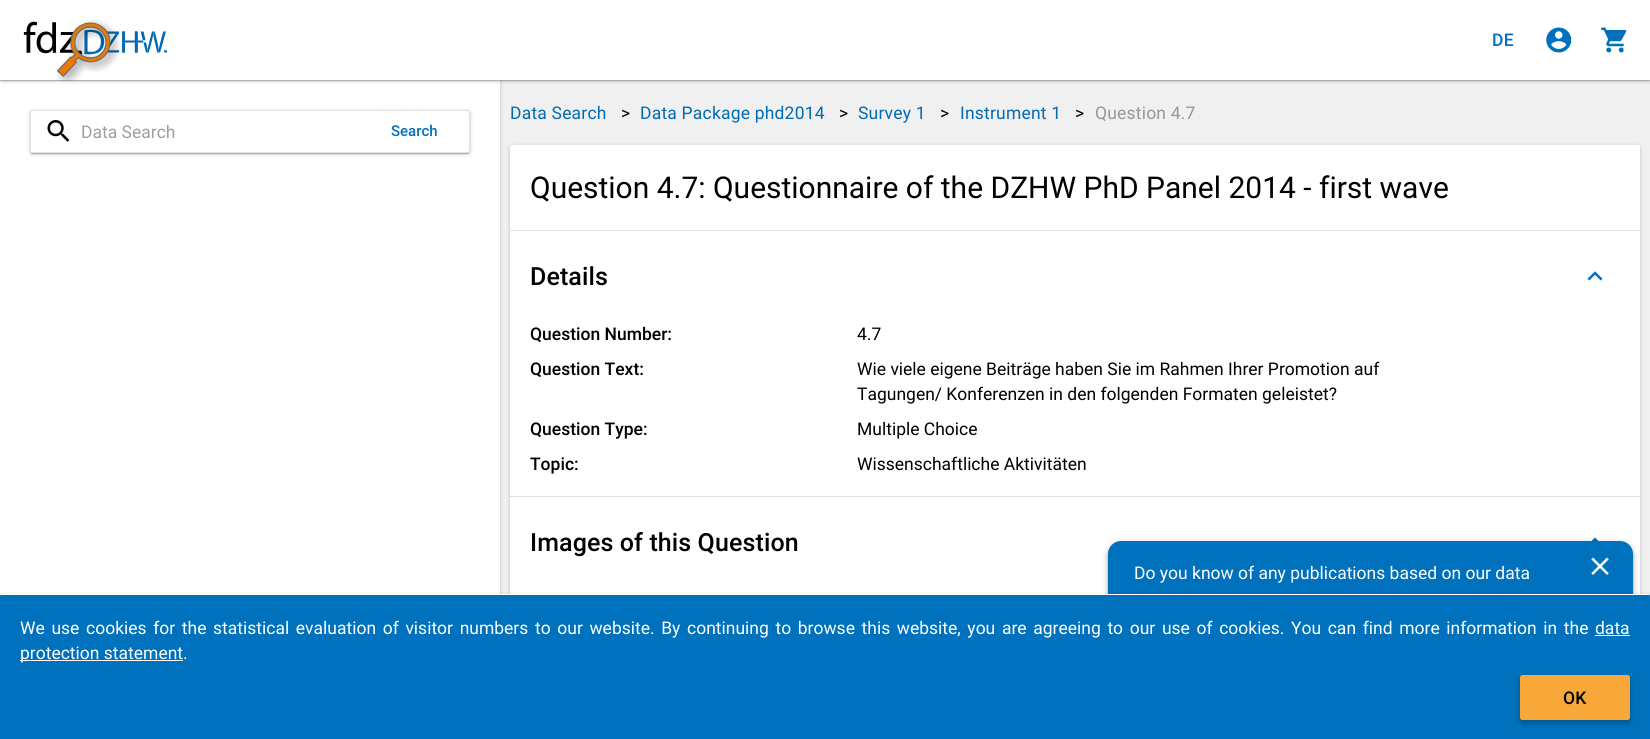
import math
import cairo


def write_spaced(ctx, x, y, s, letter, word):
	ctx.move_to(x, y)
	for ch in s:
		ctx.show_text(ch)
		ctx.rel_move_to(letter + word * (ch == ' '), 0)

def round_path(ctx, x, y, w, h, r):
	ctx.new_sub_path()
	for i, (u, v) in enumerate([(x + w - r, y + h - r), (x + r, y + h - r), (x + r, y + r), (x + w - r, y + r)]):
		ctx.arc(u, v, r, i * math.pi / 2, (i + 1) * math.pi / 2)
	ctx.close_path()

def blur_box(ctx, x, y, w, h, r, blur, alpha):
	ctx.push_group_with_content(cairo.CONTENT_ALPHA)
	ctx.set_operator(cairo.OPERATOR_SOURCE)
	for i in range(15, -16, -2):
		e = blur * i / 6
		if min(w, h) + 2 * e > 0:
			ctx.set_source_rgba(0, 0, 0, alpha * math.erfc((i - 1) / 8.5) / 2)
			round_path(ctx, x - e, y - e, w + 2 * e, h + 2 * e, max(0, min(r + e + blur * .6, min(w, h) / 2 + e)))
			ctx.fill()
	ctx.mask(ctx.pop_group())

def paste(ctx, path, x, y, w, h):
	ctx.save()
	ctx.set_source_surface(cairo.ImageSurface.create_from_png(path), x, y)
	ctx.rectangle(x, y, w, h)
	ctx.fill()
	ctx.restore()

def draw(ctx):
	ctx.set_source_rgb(0.941, 0.941, 0.941)
	ctx.paint()
	ctx.set_source_rgb(0, 0, 0)
	blur_box(ctx, 0, 81, 500, 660, 0, 2, 0.2)
	ctx.set_source_rgb(1, 1, 1)
	ctx.rectangle(0, 80, 500, 517)
	ctx.fill()
	ctx.set_source_rgb(0, 0, 0)
	blur_box(ctx, 1, 4, 1648, 77, 0, 0.5, 0.12)
	blur_box(ctx, 0, 1, 1650, 80, 0, 0.5, 0.14)
	blur_box(ctx, 0, 1, 1650, 80, 0, 2, 0.2)
	ctx.set_source_rgb(1, 1, 1)
	ctx.rectangle(0, 0, 1650, 80)
	ctx.fill()
	paste(ctx, 'media/1.png', 23, 20, 144, 61)
	ctx.select_font_face('Roboto Medium')
	ctx.set_font_size(17.5)
	ctx.set_source_rgb(0, 0.443, 0.737)
	write_spaced(ctx, 1492, 46, 'DE', 0.2, 0)
	paste(ctx, 'media/2.png', 1546, 27, 26, 26)
	paste(ctx, 'media/3.png', 1601, 27, 26, 26)
	ctx.save()
	ctx.set_fill_rule(cairo.FILL_RULE_EVEN_ODD)
	ctx.new_path()
	ctx.move_to(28, 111)
	ctx.line_to(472, 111)
	ctx.line_to(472, 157)
	ctx.line_to(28, 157)
	ctx.close_path()
	ctx.move_to(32.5, 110)
	ctx.line_to(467.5, 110)
	ctx.curve_to(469, 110, 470, 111, 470, 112.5)
	ctx.line_to(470, 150.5)
	ctx.curve_to(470, 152, 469, 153, 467.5, 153)
	ctx.line_to(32.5, 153)
	ctx.curve_to(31, 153, 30, 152, 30, 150.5)
	ctx.line_to(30, 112.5)
	ctx.curve_to(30, 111, 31, 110, 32.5, 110)
	ctx.close_path()
	ctx.clip()
	ctx.set_source_rgb(0, 0, 0)
	blur_box(ctx, 31, 114, 438, 40, 1, 0.5, 0.12)
	ctx.restore()
	ctx.save()
	ctx.set_fill_rule(cairo.FILL_RULE_EVEN_ODD)
	ctx.new_path()
	ctx.move_to(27, 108)
	ctx.line_to(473, 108)
	ctx.line_to(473, 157)
	ctx.line_to(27, 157)
	ctx.close_path()
	ctx.move_to(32.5, 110)
	ctx.line_to(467.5, 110)
	ctx.curve_to(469, 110, 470, 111, 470, 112.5)
	ctx.line_to(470, 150.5)
	ctx.curve_to(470, 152, 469, 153, 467.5, 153)
	ctx.line_to(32.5, 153)
	ctx.curve_to(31, 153, 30, 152, 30, 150.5)
	ctx.line_to(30, 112.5)
	ctx.curve_to(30, 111, 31, 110, 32.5, 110)
	ctx.close_path()
	ctx.clip()
	ctx.set_source_rgb(0, 0, 0)
	blur_box(ctx, 30, 111, 440, 43, 2.5, 0.5, 0.14)
	ctx.restore()
	ctx.save()
	ctx.set_fill_rule(cairo.FILL_RULE_EVEN_ODD)
	ctx.new_path()
	ctx.move_to(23, 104)
	ctx.line_to(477, 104)
	ctx.line_to(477, 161)
	ctx.line_to(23, 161)
	ctx.close_path()
	ctx.move_to(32.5, 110)
	ctx.line_to(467.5, 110)
	ctx.curve_to(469, 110, 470, 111, 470, 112.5)
	ctx.line_to(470, 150.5)
	ctx.curve_to(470, 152, 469, 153, 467.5, 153)
	ctx.line_to(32.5, 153)
	ctx.curve_to(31, 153, 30, 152, 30, 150.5)
	ctx.line_to(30, 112.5)
	ctx.curve_to(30, 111, 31, 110, 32.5, 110)
	ctx.close_path()
	ctx.clip()
	ctx.set_source_rgb(0, 0, 0)
	blur_box(ctx, 30, 111, 440, 43, 2.5, 2, 0.2)
	ctx.restore()
	round_path(ctx, 30.5, 110.5, 439, 42, 2)
	ctx.set_source_rgba(0, 0, 0, 0.12)
	ctx.set_line_width(1)
	ctx.stroke()
	paste(ctx, 'media/4.png', 47, 120, 23, 22)
	ctx.select_font_face('Roboto')
	ctx.set_source_rgb(0.62, 0.62, 0.62)
	ctx.move_to(81, 138)
	ctx.show_text('Data Search')
	ctx.select_font_face('Roboto Medium')
	ctx.set_font_size(15)
	ctx.set_source_rgb(0, 0.443, 0.737)
	ctx.move_to(391, 136)
	ctx.show_text('Search')
	ctx.select_font_face('Roboto')
	ctx.set_font_size(17.5)
	ctx.set_source_rgb(0, 0.416, 0.698)
	write_spaced(ctx, 510, 119, 'Data Search', 0.2, 0)
	ctx.set_source_rgb(0, 0, 0)
	write_spaced(ctx, 621, 119, '>', 0.2, 0)
	ctx.set_source_rgb(0, 0.416, 0.698)
	write_spaced(ctx, 640, 119, 'Data Package phd2014', 0.2, 0)
	ctx.set_source_rgb(0, 0, 0)
	write_spaced(ctx, 839, 119, '>', 0.2, 0)
	ctx.set_source_rgb(0, 0.416, 0.698)
	write_spaced(ctx, 858, 119, 'Survey 1', 0.2, 0)
	ctx.set_source_rgb(0, 0, 0)
	write_spaced(ctx, 940, 119, '>', 0.2, 0)
	ctx.set_source_rgb(0, 0.416, 0.698)
	write_spaced(ctx, 960, 119, 'Instrument 1', 0.2, 0)
	ctx.set_source_rgb(0, 0, 0)
	write_spaced(ctx, 1075, 119, '>', 0.2, 0)
	ctx.set_source_rgb(0.592, 0.592, 0.592)
	write_spaced(ctx, 1095, 119, 'Question 4.7', 0.2, 0)
	ctx.set_source_rgb(0, 0, 0)
	blur_box(ctx, 510, 146, 1130, 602, 2.5, 2, 0.2)
	ctx.set_source_rgb(1, 1, 1)
	ctx.new_path()
	ctx.move_to(512.5, 145)
	ctx.line_to(1637.5, 145)
	ctx.curve_to(1639, 145, 1640, 146, 1640, 147.5)
	ctx.line_to(1640, 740)
	ctx.line_to(510, 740)
	ctx.line_to(510, 147.5)
	ctx.curve_to(510, 146, 511, 145, 512.5, 145)
	ctx.close_path()
	ctx.fill()
	ctx.set_font_size(30)
	ctx.set_source_rgb(0, 0, 0)
	ctx.move_to(530, 198)
	ctx.show_text('Question 4.7: Questionnaire of the DZHW PhD Panel 2014 - first wave')
	ctx.set_source_rgb(0.878, 0.878, 0.878)
	ctx.rectangle(510, 230, 1130, 1)
	ctx.fill()
	ctx.select_font_face('Roboto Medium')
	ctx.set_font_size(25)
	ctx.set_source_rgb(0, 0, 0)
	write_spaced(ctx, 530, 285, 'Details', 0.1, 0)
	paste(ctx, 'media/5.png', 1587, 271, 16, 10)
	ctx.set_font_size(17.5)
	ctx.move_to(530, 340)
	ctx.show_text('Question Number:')
	ctx.select_font_face('Roboto')
	ctx.move_to(857, 340)
	ctx.show_text('4.7')
	ctx.select_font_face('Roboto Medium')
	ctx.move_to(530, 375)
	ctx.show_text('Question Text:')
	ctx.select_font_face('Roboto')
	ctx.move_to(857, 375)
	ctx.show_text('Wie viele eigene Beiträge haben Sie im Rahmen Ihrer Promotion auf')
	ctx.move_to(857, 400)
	ctx.show_text('Tagungen/ Konferenzen in den folgenden Formaten geleistet?')
	ctx.select_font_face('Roboto Medium')
	ctx.move_to(530, 435)
	ctx.show_text('Question Type:')
	ctx.select_font_face('Roboto')
	ctx.move_to(857, 435)
	ctx.show_text('Multiple Choice')
	ctx.select_font_face('Roboto Medium')
	ctx.move_to(530, 470)
	ctx.show_text('Topic:')
	ctx.select_font_face('Roboto')
	ctx.move_to(857, 470)
	ctx.show_text('Wissenschaftliche Aktivitäten')
	ctx.set_source_rgb(0.878, 0.878, 0.878)
	ctx.rectangle(510, 496, 1130, 1)
	ctx.fill()
	ctx.select_font_face('Roboto Medium')
	ctx.set_font_size(25)
	ctx.set_source_rgb(0, 0, 0)
	write_spaced(ctx, 530, 551, 'Images of this Question', 0.1, 0)
	paste(ctx, 'media/6.png', 1591, 537, 8, 4)
	ctx.set_source_rgb(0, 0, 0)
	blur_box(ctx, 1108, 543, 525, 88, 13, 1, 0.2)
	blur_box(ctx, 1108, 543, 525, 88, 13, 3, 0.3)
	ctx.set_source_rgb(0, 0.443, 0.737)
	round_path(ctx, 1108, 541, 525, 89, 13)
	ctx.fill()
	ctx.select_font_face('Roboto')
	ctx.set_font_size(17.5)
	ctx.set_source_rgb(1, 1, 1)
	ctx.move_to(1134, 579)
	ctx.show_text('Do you know of any publications based on our data')
	paste(ctx, 'media/7.png', 1591, 557, 18, 18)
	ctx.set_source_rgb(0, 0, 0)
	blur_box(ctx, 0, 595, 1650, 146, 2.5, 2, 0.2)
	ctx.set_source_rgb(0, 0.443, 0.737)
	ctx.new_path()
	ctx.move_to(2.5, 594)
	ctx.line_to(1647.5, 594)
	ctx.curve_to(1649, 594, 1650, 595, 1650, 596.5)
	ctx.line_to(1650, 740)
	ctx.line_to(0, 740)
	ctx.line_to(0, 596.5)
	ctx.curve_to(0, 595, 1, 594, 2.5, 594)
	ctx.close_path()
	ctx.fill()
	ctx.set_source_rgb(1, 1, 1)
	ctx.rectangle(1, 594, 1648, 1)
	ctx.fill()
	write_spaced(ctx, 20, 634, 'We use cookies for the statistical evaluation of visitor numbers to our website. By continuing to browse this website, you are agreeing to our use of cookies. You can find more information in the', 0, 2.3)
	ctx.move_to(1595, 634)
	ctx.show_text('data')
	ctx.rectangle(1595, 635, 35, 1)
	ctx.fill()
	ctx.rectangle(20, 660, 163, 1)
	ctx.fill()
	ctx.move_to(20, 659)
	ctx.show_text('protection statement.')
	ctx.set_source_rgb(0, 0, 0)
	blur_box(ctx, 1520, 678, 110, 45, 2.5, 3, 0.26)
	ctx.set_source_rgb(0.969, 0.659, 0.224)
	round_path(ctx, 1520, 675, 110, 45, 2.5)
	ctx.fill()
	ctx.select_font_face('Roboto Medium')
	ctx.set_source_rgb(0, 0, 0)
	write_spaced(ctx, 1563, 704, 'OK', 0.2, 0)


surface = cairo.ImageSurface(cairo.FORMAT_RGB24, 1650, 739)
ctx = cairo.Context(surface)
options = cairo.FontOptions()
options.set_hint_metrics(cairo.HINT_METRICS_OFF)
options.set_hint_style(cairo.HINT_STYLE_NONE)
ctx.set_font_options(options)
ctx.set_miter_limit(4)
draw(ctx)
surface.write_to_png('image.png')
